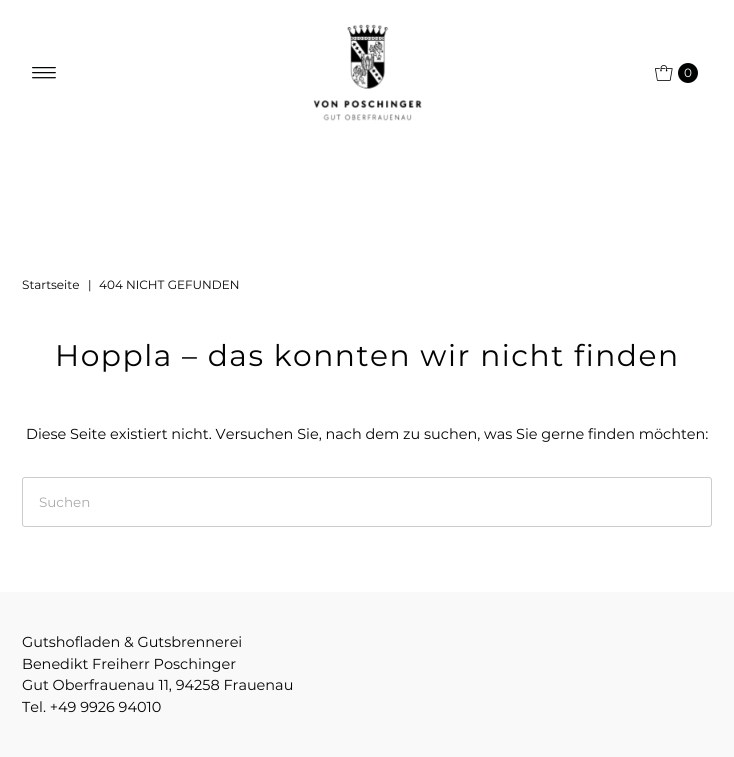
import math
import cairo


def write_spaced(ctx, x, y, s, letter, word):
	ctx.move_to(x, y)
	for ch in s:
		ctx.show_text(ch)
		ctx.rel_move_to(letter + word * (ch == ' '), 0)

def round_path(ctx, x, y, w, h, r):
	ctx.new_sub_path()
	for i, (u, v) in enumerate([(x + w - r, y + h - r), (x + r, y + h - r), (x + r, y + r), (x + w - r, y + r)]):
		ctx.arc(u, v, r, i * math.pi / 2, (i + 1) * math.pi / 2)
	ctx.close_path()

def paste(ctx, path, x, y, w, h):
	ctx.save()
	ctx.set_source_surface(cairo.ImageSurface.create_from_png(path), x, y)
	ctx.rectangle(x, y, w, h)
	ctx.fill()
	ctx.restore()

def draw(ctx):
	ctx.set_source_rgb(1, 1, 1)
	ctx.paint()
	paste(ctx, 'media/1.png', 32, 67, 24, 12)
	paste(ctx, 'media/2.png', 313, 24, 109, 97)
	paste(ctx, 'media/3.png', 655, 65, 18, 16)
	ctx.set_source_rgb(0.004, 0.012, 0.008)
	ctx.arc(688, 73, 10, 0, 2 * math.pi)
	ctx.fill()
	ctx.select_font_face('Montserrat')
	ctx.set_font_size(12)
	ctx.set_source_rgb(1, 1, 1)
	ctx.move_to(684, 77)
	ctx.show_text('0')
	ctx.set_source_rgb(0.004, 0.012, 0.008)
	for x, y, s in [
		(22, 289, 'Startseite'),
		(88, 289, '|'),
		(99, 289, '404 NICHT GEFUNDEN'),
	]:
		ctx.move_to(x, y)
		ctx.show_text(s)
	ctx.set_font_size(29.75)
	write_spaced(ctx, 55, 366, 'Hoppla – das konnten wir nicht finden', 1.5, 0)
	ctx.set_font_size(14.45)
	ctx.move_to(26, 439)
	ctx.show_text('Diese Seite existiert nicht. Versuchen Sie, nach dem zu suchen, was Sie gerne finden möchten:')
	round_path(ctx, 22.5, 477.5, 689, 49, 2.5)
	ctx.set_source_rgb(0.8, 0.8, 0.8)
	ctx.set_line_width(1)
	ctx.stroke()
	ctx.set_font_size(13.5)
	ctx.set_source_rgb(0.667, 0.667, 0.667)
	ctx.move_to(39, 507)
	ctx.show_text('Suchen')
	ctx.set_source_rgb(0.973, 0.973, 0.973)
	ctx.rectangle(0, 592, 734, 165)
	ctx.fill()
	ctx.set_font_size(14.45)
	ctx.set_source_rgb(0.004, 0.012, 0.008)
	for x, y, s in [
		(22, 647, 'Gutshofladen & Gutsbrennerei'),
		(22, 669, 'Benedikt Freiherr Poschinger'),
		(22, 690, 'Gut Oberfrauenau 11, 94258 Frauenau'),
		(22, 712, 'Tel. +49 9926 94010'),
	]:
		ctx.move_to(x, y)
		ctx.show_text(s)


surface = cairo.ImageSurface(cairo.FORMAT_RGB24, 734, 757)
ctx = cairo.Context(surface)
options = cairo.FontOptions()
options.set_hint_metrics(cairo.HINT_METRICS_OFF)
options.set_hint_style(cairo.HINT_STYLE_NONE)
ctx.set_font_options(options)
ctx.set_miter_limit(4)
draw(ctx)
surface.write_to_png('image.png')
